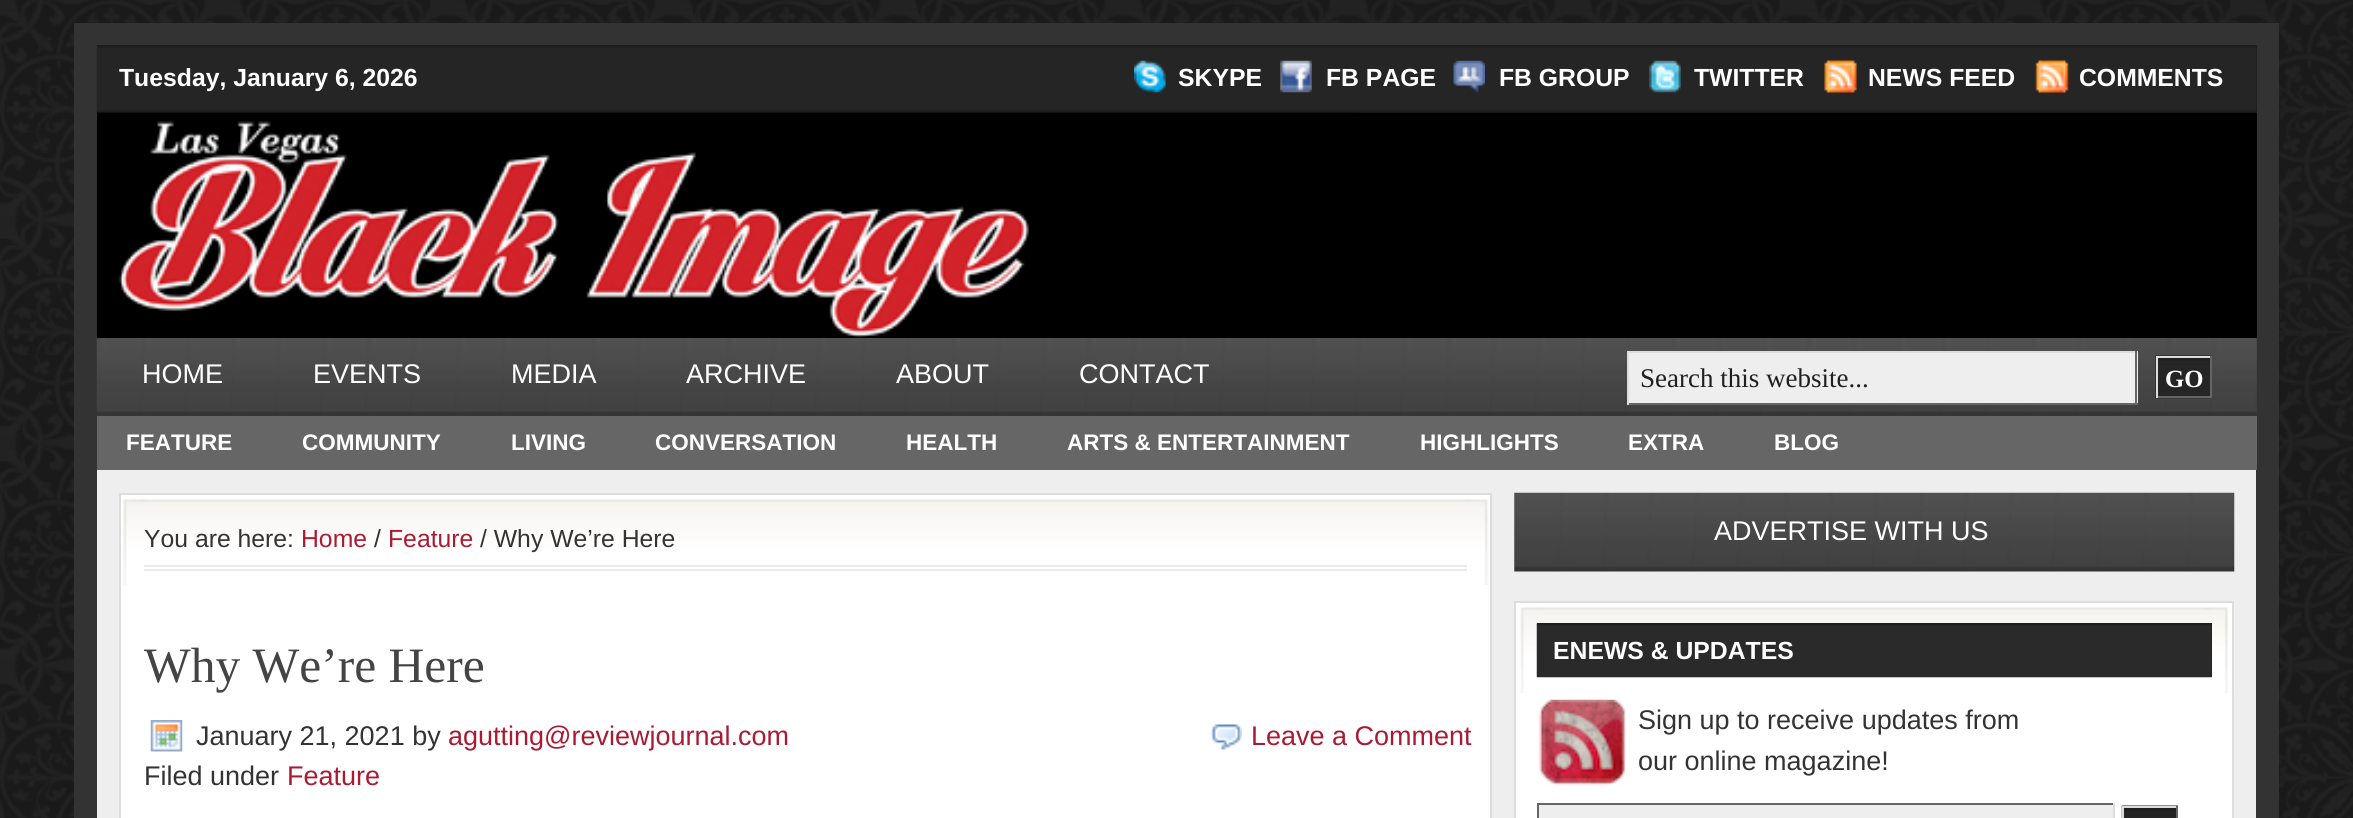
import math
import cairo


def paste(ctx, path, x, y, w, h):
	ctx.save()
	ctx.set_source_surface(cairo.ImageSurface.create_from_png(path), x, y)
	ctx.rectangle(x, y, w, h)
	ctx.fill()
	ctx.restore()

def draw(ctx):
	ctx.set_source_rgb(1, 1, 1)
	ctx.paint()
	paste(ctx, 'media/1.png', 0, 0, 2353, 818)
	ctx.set_source_rgb(0.933, 0.933, 0.933)
	ctx.rectangle(97, 470, 2159, 348)
	ctx.fill()
	ctx.rectangle(85.5, 34.5, 2182, 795)
	ctx.set_source_rgb(0.2, 0.2, 0.2)
	ctx.set_line_width(23)
	ctx.stroke()
	ctx.set_source_rgb(0.067, 0.067, 0.067)
	ctx.rectangle(97, 45, 2160, 68)
	ctx.fill()
	paste(ctx, 'media/2.png', 96, 45, 2161, 68)
	ctx.select_font_face('Liberation Sans', cairo.FONT_SLANT_NORMAL, cairo.FONT_WEIGHT_BOLD)
	ctx.set_font_size(24.75)
	ctx.set_source_rgb(1, 1, 1)
	ctx.move_to(119, 86)
	ctx.show_text('Tuesday, January 6, 2026')
	paste(ctx, 'media/3.png', 1134, 60, 32, 33)
	ctx.move_to(1178, 86)
	ctx.show_text('SKYPE')
	paste(ctx, 'media/4.png', 1280, 60, 32, 33)
	ctx.move_to(1326, 86)
	ctx.show_text('FB PAGE')
	paste(ctx, 'media/5.png', 1453, 60, 32, 33)
	ctx.move_to(1499, 86)
	ctx.show_text('FB GROUP')
	paste(ctx, 'media/6.png', 1649, 60, 32, 33)
	ctx.move_to(1694, 86)
	ctx.show_text('TWITTER')
	paste(ctx, 'media/7.png', 1824, 60, 33, 33)
	ctx.move_to(1868, 86)
	ctx.show_text('NEWS FEED')
	paste(ctx, 'media/8.png', 2035, 60, 34, 33)
	ctx.move_to(2079, 86)
	ctx.show_text('COMMENTS')
	paste(ctx, 'media/10.png', 96, 337, 2161, 80)
	ctx.set_source_rgb(0, 0, 0)
	ctx.rectangle(97, 113, 2160, 225)
	ctx.fill()
	paste(ctx, 'media/9.png', 97, 112, 1262, 226)
	ctx.select_font_face('Liberation Sans')
	ctx.set_font_size(27)
	ctx.set_source_rgb(1, 1, 1)
	for x, y, s in [
		(142, 383, 'HOME'),
		(313, 383, 'EVENTS'),
		(511, 383, 'MEDIA'),
		(686, 383, 'ARCHIVE'),
		(896, 383, 'ABOUT'),
		(1079, 383, 'CONTACT'),
	]:
		ctx.move_to(x, y)
		ctx.show_text(s)
	ctx.set_source_rgb(0.933, 0.933, 0.933)
	ctx.rectangle(1629, 353, 509, 50)
	ctx.fill()
	ctx.set_source_rgb(0.867, 0.867, 0.867)
	ctx.rectangle(1627, 351, 511, 2)
	ctx.fill()
	ctx.set_source_rgb(0.4, 0.4, 0.4)
	ctx.rectangle(2135, 351, 2, 54)
	ctx.rectangle(1627, 403, 511, 2)
	ctx.fill()
	ctx.set_source_rgb(0.867, 0.867, 0.867)
	ctx.rectangle(1627, 351, 2, 54)
	ctx.fill()
	ctx.select_font_face('Liberation Serif')
	ctx.set_source_rgb(0.125, 0.125, 0.125)
	ctx.move_to(1640, 387)
	ctx.show_text('Search this website...')
	paste(ctx, 'media/11.png', 2155, 355, 57, 44)
	ctx.set_source_rgb(0.867, 0.867, 0.867)
	ctx.rectangle(2156, 356, 56, 2)
	ctx.fill()
	ctx.set_source_rgb(0.4, 0.4, 0.4)
	ctx.rectangle(2210, 356, 2, 42)
	ctx.rectangle(2156, 396, 56, 2)
	ctx.fill()
	ctx.set_source_rgb(0.867, 0.867, 0.867)
	ctx.rectangle(2156, 356, 2, 42)
	ctx.fill()
	ctx.select_font_face('Liberation Serif', cairo.FONT_SLANT_NORMAL, cairo.FONT_WEIGHT_BOLD)
	ctx.set_font_size(24.75)
	ctx.set_source_rgb(1, 1, 1)
	ctx.move_to(2165, 387)
	ctx.show_text('GO')
	ctx.set_source_rgb(0.4, 0.4, 0.4)
	ctx.rectangle(97, 416, 2160, 54)
	ctx.fill()
	ctx.select_font_face('Liberation Sans', cairo.FONT_SLANT_NORMAL, cairo.FONT_WEIGHT_BOLD)
	ctx.set_font_size(22.5)
	ctx.set_source_rgb(1, 1, 1)
	for x, y, s in [
		(126, 450, 'FEATURE'),
		(302, 450, 'COMMUNITY'),
		(511, 450, 'LIVING'),
		(655, 450, 'CONVERSATION'),
		(906, 450, 'HEALTH'),
		(1067, 450, 'ARTS & ENTERTAINMENT'),
		(1420, 450, 'HIGHLIGHTS'),
		(1628, 450, 'EXTRA'),
		(1774, 450, 'BLOG'),
	]:
		ctx.move_to(x, y)
		ctx.show_text(s)
	ctx.rectangle(121, 495, 1369, 323)
	ctx.fill()
	paste(ctx, 'media/12.png', 123, 499, 1365, 86)
	ctx.rectangle(120, 494, 1371, 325)
	ctx.set_source_rgb(0.867, 0.867, 0.867)
	ctx.set_line_width(2)
	ctx.stroke()
	ctx.set_source_rgb(0.918, 0.918, 0.918)
	ctx.rectangle(144, 565, 1323, 2)
	ctx.fill()
	ctx.rectangle(144, 569, 1323, 2)
	ctx.fill()
	ctx.select_font_face('Liberation Sans')
	ctx.set_font_size(24.75)
	ctx.set_source_rgb(0.2, 0.2, 0.2)
	ctx.move_to(144, 547)
	ctx.show_text('You are here:')
	ctx.set_source_rgb(0.663, 0.106, 0.2)
	ctx.move_to(301, 547)
	ctx.show_text('Home')
	ctx.set_source_rgb(0.2, 0.2, 0.2)
	ctx.move_to(374, 547)
	ctx.show_text('/')
	ctx.set_source_rgb(0.663, 0.106, 0.2)
	ctx.move_to(388, 547)
	ctx.show_text('Feature')
	ctx.set_source_rgb(0.2, 0.2, 0.2)
	ctx.move_to(480, 547)
	ctx.show_text('/ Why We’re Here')
	ctx.select_font_face('Liberation Serif')
	ctx.set_font_size(49.5)
	ctx.set_source_rgb(0.267, 0.267, 0.267)
	ctx.move_to(144, 682)
	ctx.show_text('Why We’re Here')
	paste(ctx, 'media/13.png', 150, 720, 33, 32)
	ctx.select_font_face('Liberation Sans')
	ctx.set_font_size(27)
	ctx.set_source_rgb(0.2, 0.2, 0.2)
	ctx.move_to(196, 745)
	ctx.show_text('January 21, 2021 by')
	ctx.set_source_rgb(0.663, 0.106, 0.2)
	ctx.move_to(448, 745)
	ctx.show_text('agutting@reviewjournal.com')
	ctx.set_source_rgb(0.2, 0.2, 0.2)
	ctx.move_to(144, 785)
	ctx.show_text('Filed under')
	ctx.set_source_rgb(0.663, 0.106, 0.2)
	ctx.move_to(287, 785)
	ctx.show_text('Feature')
	paste(ctx, 'media/14.png', 1210, 724, 32, 26)
	ctx.move_to(1251, 745)
	ctx.show_text('Leave a Comment')
	paste(ctx, 'media/15.png', 1514, 492, 721, 80)
	ctx.set_source_rgb(1, 1, 1)
	ctx.move_to(1714, 540)
	ctx.show_text('ADVERTISE WITH US')
	ctx.rectangle(1516, 603, 716, 215)
	ctx.fill()
	paste(ctx, 'media/16.png', 1520, 603, 715, 90)
	ctx.rectangle(1515, 602, 718, 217)
	ctx.set_source_rgb(0.867, 0.867, 0.867)
	ctx.stroke()
	ctx.set_source_rgb(0.067, 0.067, 0.067)
	ctx.rectangle(1537, 623, 675, 54)
	ctx.fill()
	paste(ctx, 'media/17.png', 1536, 623, 676, 55)
	ctx.select_font_face('Liberation Sans', cairo.FONT_SLANT_NORMAL, cairo.FONT_WEIGHT_BOLD)
	ctx.set_font_size(24.75)
	ctx.set_source_rgb(1, 1, 1)
	ctx.move_to(1553, 659)
	ctx.show_text('ENEWS & UPDATES')
	paste(ctx, 'media/18.png', 1538, 699, 88, 87)
	ctx.select_font_face('Liberation Sans')
	ctx.set_font_size(27)
	ctx.set_source_rgb(0.2, 0.2, 0.2)
	ctx.move_to(1638, 729)
	ctx.show_text('Sign up to receive updates from')
	ctx.move_to(1638, 770)
	ctx.show_text('our online magazine!')
	ctx.set_source_rgb(0.933, 0.933, 0.933)
	ctx.rectangle(1539, 805, 574, 13)
	ctx.fill()
	ctx.set_source_rgb(0.4, 0.4, 0.4)
	ctx.rectangle(1537, 803, 578, 2)
	ctx.fill()
	ctx.set_source_rgb(0.867, 0.867, 0.867)
	ctx.rectangle(2113, 803, 2, 15)
	ctx.fill()
	ctx.set_source_rgb(0.4, 0.4, 0.4)
	ctx.rectangle(1537, 803, 2, 15)
	ctx.fill()
	paste(ctx, 'media/19.png', 2121, 805, 57, 13)
	ctx.set_source_rgb(0.867, 0.867, 0.867)
	ctx.rectangle(2122, 806, 56, 2)
	ctx.fill()
	ctx.set_source_rgb(0.4, 0.4, 0.4)
	ctx.rectangle(2176, 806, 2, 12)
	ctx.fill()
	ctx.set_source_rgb(0.867, 0.867, 0.867)
	ctx.rectangle(2122, 806, 2, 12)
	ctx.fill()


surface = cairo.ImageSurface(cairo.FORMAT_RGB24, 2353, 818)
ctx = cairo.Context(surface)
options = cairo.FontOptions()
options.set_hint_metrics(cairo.HINT_METRICS_OFF)
options.set_hint_style(cairo.HINT_STYLE_NONE)
ctx.set_font_options(options)
ctx.set_miter_limit(4)
draw(ctx)
surface.write_to_png('image.png')
